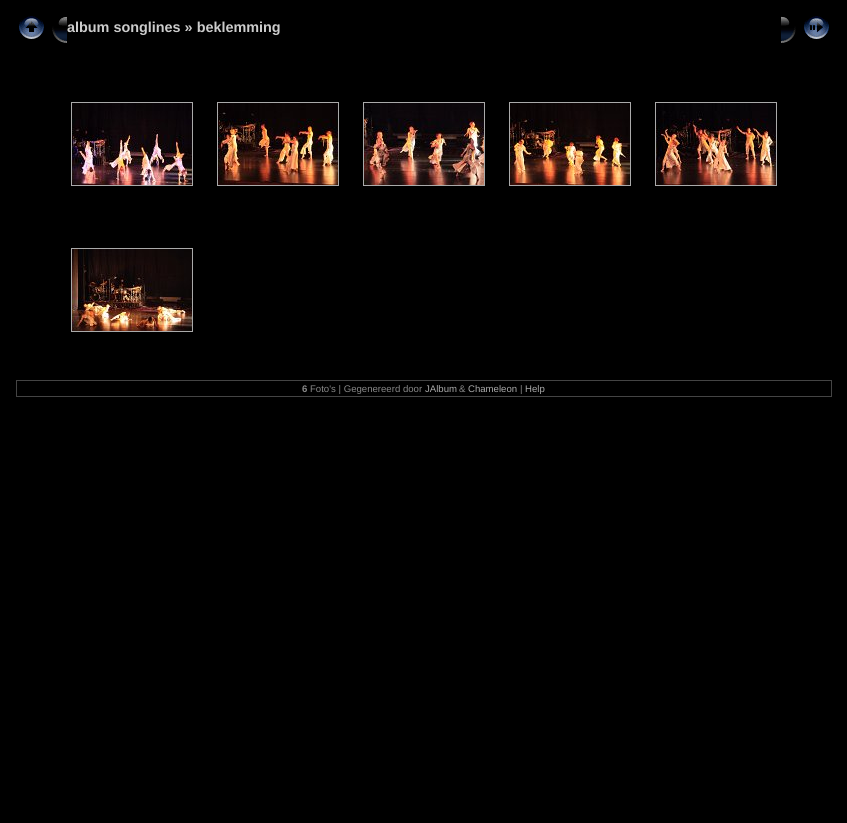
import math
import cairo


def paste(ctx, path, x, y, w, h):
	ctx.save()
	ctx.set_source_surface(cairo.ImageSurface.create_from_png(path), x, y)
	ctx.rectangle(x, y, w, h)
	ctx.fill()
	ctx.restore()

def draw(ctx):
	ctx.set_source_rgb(0, 0, 0)
	ctx.paint()
	paste(ctx, 'media/1.png', 19, 16, 25, 23)
	paste(ctx, 'media/2.png', 52, 16, 15, 27)
	ctx.select_font_face('Liberation Sans', cairo.FONT_SLANT_NORMAL, cairo.FONT_WEIGHT_BOLD)
	ctx.set_font_size(14.4)
	ctx.set_source_rgb(0.8, 0.8, 0.8)
	ctx.move_to(67, 32)
	ctx.show_text('album songlines » beklemming')
	paste(ctx, 'media/3.png', 781, 16, 15, 27)
	paste(ctx, 'media/4.png', 804, 16, 25, 23)
	ctx.rectangle(71.5, 102.5, 121, 83)
	ctx.set_source_rgb(0.667, 0.667, 0.667)
	ctx.set_line_width(1)
	ctx.stroke()
	paste(ctx, 'media/5.png', 72, 103, 120, 82)
	ctx.rectangle(217.5, 102.5, 121, 83)
	ctx.stroke()
	paste(ctx, 'media/6.png', 218, 103, 120, 82)
	ctx.rectangle(363.5, 102.5, 121, 83)
	ctx.stroke()
	paste(ctx, 'media/7.png', 364, 103, 120, 82)
	ctx.rectangle(509.5, 102.5, 121, 83)
	ctx.stroke()
	paste(ctx, 'media/8.png', 510, 103, 120, 82)
	ctx.rectangle(655.5, 102.5, 121, 83)
	ctx.stroke()
	paste(ctx, 'media/9.png', 656, 103, 120, 82)
	ctx.rectangle(71.5, 248.5, 121, 83)
	ctx.stroke()
	paste(ctx, 'media/10.png', 72, 249, 120, 82)
	ctx.set_source_rgb(0.267, 0.267, 0.267)
	ctx.rectangle(16, 380, 816, 1)
	ctx.rectangle(831, 380, 1, 17)
	ctx.rectangle(16, 396, 816, 1)
	ctx.rectangle(16, 380, 1, 17)
	ctx.fill()
	ctx.set_font_size(9.6)
	ctx.set_source_rgb(0.533, 0.533, 0.533)
	ctx.move_to(302, 392)
	ctx.show_text('6')
	ctx.select_font_face('Liberation Sans')
	ctx.move_to(310, 392)
	ctx.show_text('Foto\'s | Gegenereerd door')
	ctx.set_source_rgb(0.667, 0.667, 0.667)
	ctx.move_to(425, 392)
	ctx.show_text('JAlbum')
	ctx.set_source_rgb(0.533, 0.533, 0.533)
	ctx.move_to(459, 392)
	ctx.show_text('&')
	ctx.set_source_rgb(0.667, 0.667, 0.667)
	ctx.move_to(468, 392)
	ctx.show_text('Chameleon')
	ctx.set_source_rgb(0.533, 0.533, 0.533)
	ctx.move_to(520, 392)
	ctx.show_text('|')
	ctx.set_source_rgb(0.667, 0.667, 0.667)
	ctx.move_to(525, 392)
	ctx.show_text('Help')


surface = cairo.ImageSurface(cairo.FORMAT_RGB24, 847, 823)
ctx = cairo.Context(surface)
options = cairo.FontOptions()
options.set_hint_metrics(cairo.HINT_METRICS_OFF)
options.set_hint_style(cairo.HINT_STYLE_NONE)
ctx.set_font_options(options)
ctx.set_miter_limit(4)
draw(ctx)
surface.write_to_png('image.png')
